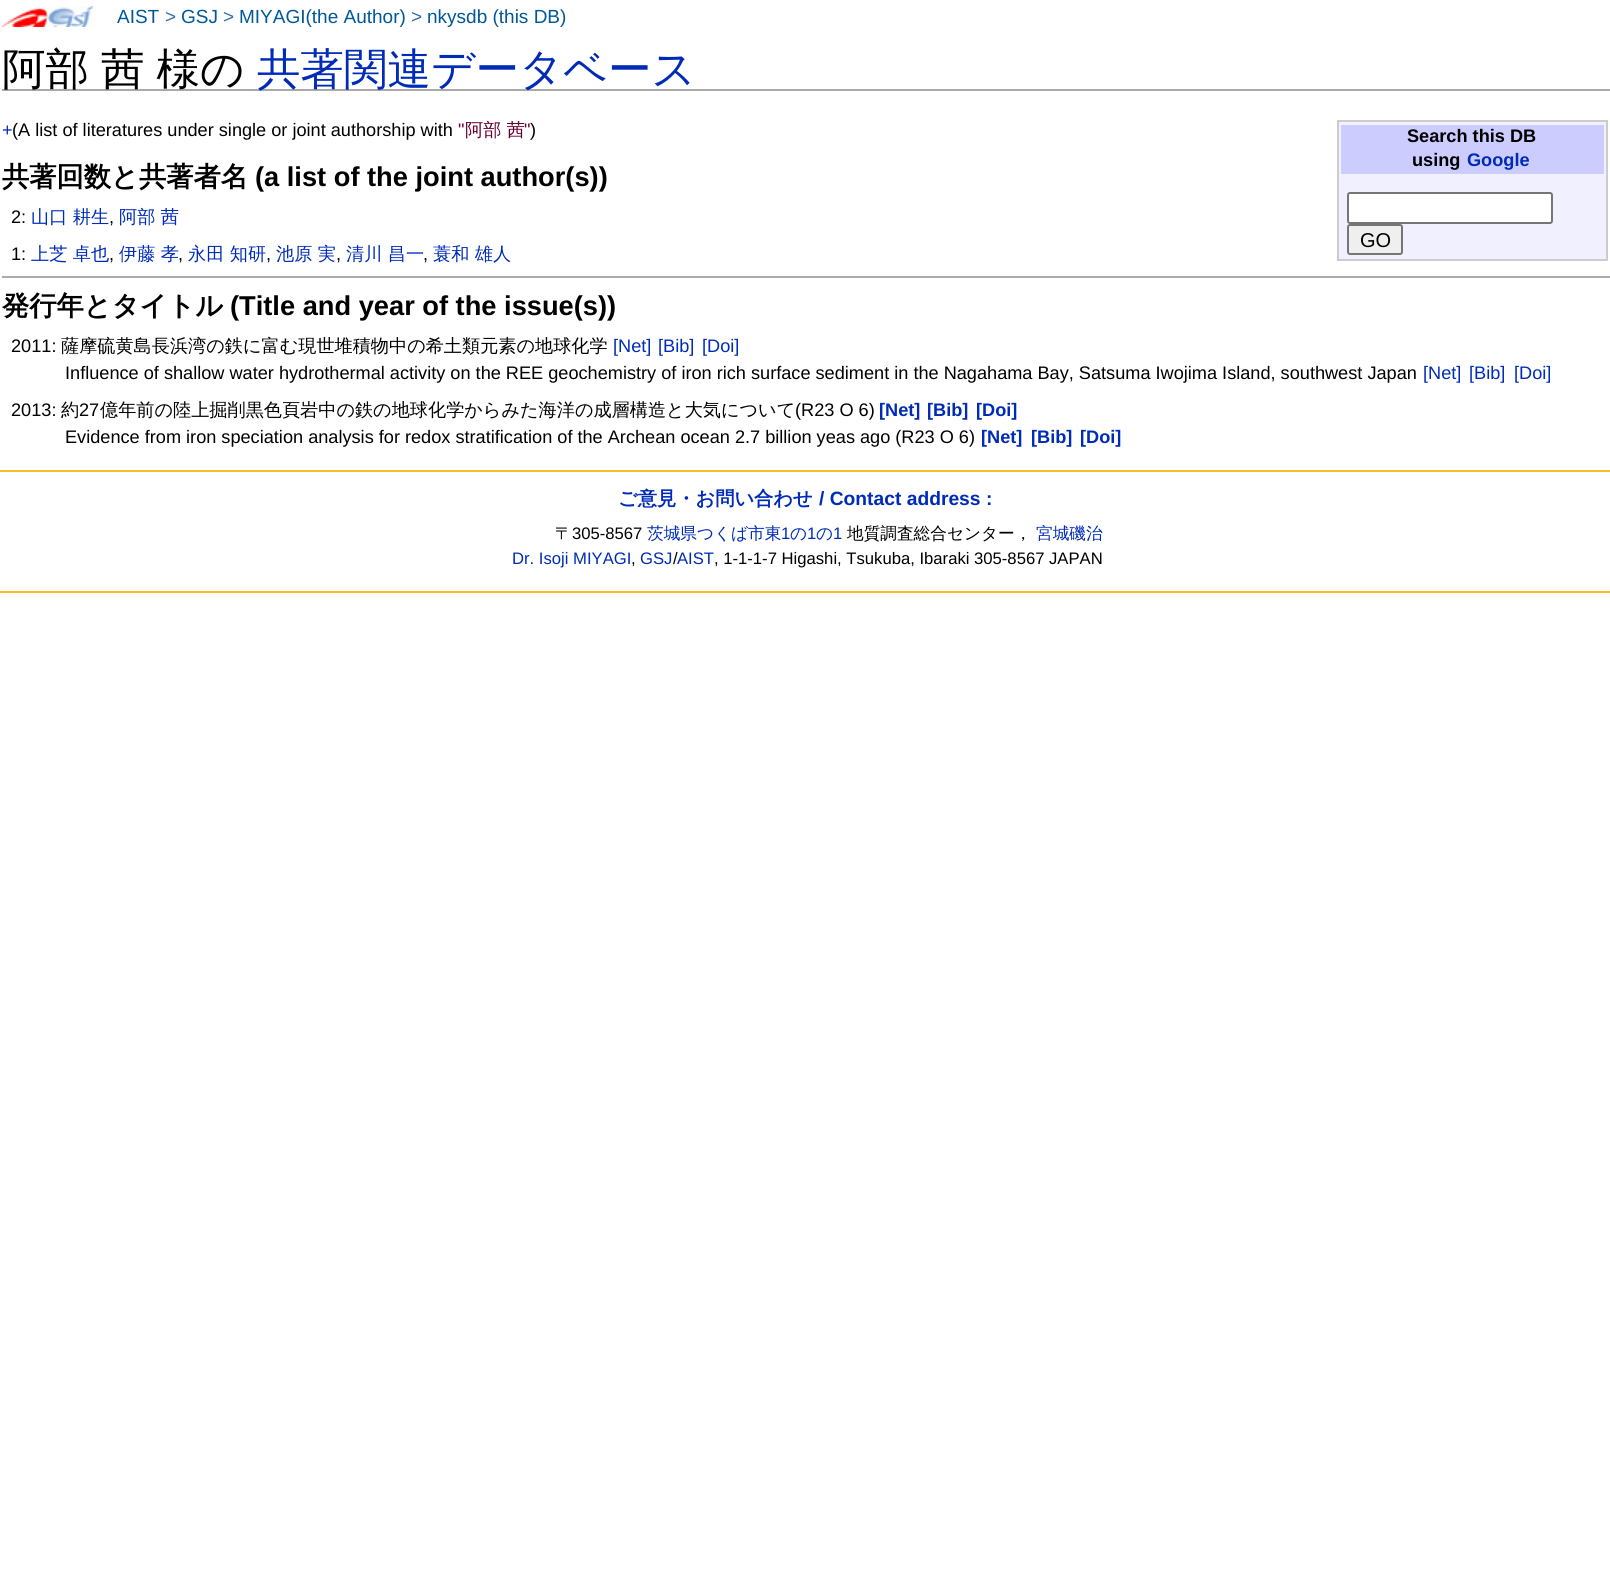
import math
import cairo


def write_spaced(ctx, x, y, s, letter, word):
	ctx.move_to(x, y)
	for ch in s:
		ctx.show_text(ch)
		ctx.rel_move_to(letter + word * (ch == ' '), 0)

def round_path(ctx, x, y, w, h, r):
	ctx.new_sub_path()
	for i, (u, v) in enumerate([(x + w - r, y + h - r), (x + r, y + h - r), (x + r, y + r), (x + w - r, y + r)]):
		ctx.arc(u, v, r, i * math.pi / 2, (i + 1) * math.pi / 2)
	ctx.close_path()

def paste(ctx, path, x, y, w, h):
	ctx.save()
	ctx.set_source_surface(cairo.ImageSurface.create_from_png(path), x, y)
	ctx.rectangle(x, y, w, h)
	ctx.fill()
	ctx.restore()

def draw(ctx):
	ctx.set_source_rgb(1, 1, 1)
	ctx.paint()
	paste(ctx, 'media/1.png', 1, 6, 92, 21)
	ctx.select_font_face('Liberation Sans')
	ctx.set_font_size(19)
	ctx.set_source_rgb(0, 0.345, 0.588)
	ctx.move_to(117, 23)
	ctx.show_text('AIST')
	ctx.set_source_rgb(0.184, 0.435, 0.671)
	ctx.move_to(165, 23)
	ctx.show_text('>')
	ctx.set_source_rgb(0, 0.345, 0.588)
	ctx.move_to(181, 23)
	ctx.show_text('GSJ')
	ctx.set_source_rgb(0.184, 0.435, 0.671)
	ctx.move_to(223, 23)
	ctx.show_text('>')
	ctx.set_source_rgb(0, 0.345, 0.588)
	ctx.move_to(239, 23)
	ctx.show_text('MIYAGI(the Author)')
	ctx.set_source_rgb(0.184, 0.435, 0.671)
	ctx.move_to(411, 23)
	ctx.show_text('>')
	ctx.set_source_rgb(0, 0.345, 0.588)
	ctx.move_to(427, 23)
	ctx.show_text('nkysdb (this DB)')
	ctx.set_source_rgb(0.667, 0.667, 0.667)
	ctx.rectangle(2, 89, 1608, 2)
	ctx.fill()
	ctx.select_font_face('WenQuanYi Zen Hei Medium')
	ctx.set_font_size(43.5)
	ctx.set_source_rgb(0, 0, 0)
	write_spaced(ctx, 2, 84, '阿部 茜 様の', 0, -1)
	ctx.set_source_rgb(0, 0.169, 0.722)
	ctx.move_to(257, 84)
	ctx.show_text('共著関連データベース')
	ctx.select_font_face('Liberation Sans')
	ctx.set_font_size(18.15)
	ctx.move_to(2, 136)
	ctx.show_text('+')
	ctx.set_source_rgb(0, 0, 0)
	ctx.move_to(12, 136)
	ctx.show_text('(A list of literatures under single or joint authorship with')
	ctx.set_source_rgb(0.4, 0, 0.2)
	ctx.move_to(458, 136)
	ctx.show_text('"')
	ctx.select_font_face('WenQuanYi Zen Hei Medium')
	ctx.move_to(465, 136)
	ctx.show_text('阿部 茜')
	ctx.select_font_face('Liberation Sans')
	ctx.move_to(524, 136)
	ctx.show_text('"')
	ctx.set_source_rgb(0, 0, 0)
	ctx.move_to(530, 136)
	ctx.show_text(')')
	ctx.set_source_rgb(0.941, 0.941, 1)
	ctx.rectangle(1338, 121, 269, 139)
	ctx.fill_preserve()
	ctx.set_source_rgb(0.8, 0.8, 0.8)
	ctx.stroke()
	ctx.set_source_rgb(0.8, 0.8, 1)
	ctx.rectangle(1341, 125, 263, 49)
	ctx.fill()
	ctx.select_font_face('Liberation Sans', cairo.FONT_SLANT_NORMAL, cairo.FONT_WEIGHT_BOLD)
	ctx.set_source_rgb(0, 0, 0)
	ctx.move_to(1407, 142)
	ctx.show_text('Search this DB')
	ctx.move_to(1412, 166)
	ctx.show_text('using')
	ctx.set_source_rgb(0, 0.169, 0.722)
	ctx.move_to(1467, 166)
	ctx.show_text('Google')
	ctx.set_source_rgb(1, 1, 1)
	round_path(ctx, 1348, 193, 204, 30, 2)
	ctx.fill_preserve()
	ctx.set_source_rgb(0.463, 0.463, 0.463)
	ctx.stroke()
	ctx.set_source_rgb(0.937, 0.937, 0.937)
	round_path(ctx, 1348, 225, 54, 29, 2)
	ctx.fill_preserve()
	ctx.set_source_rgb(0.463, 0.463, 0.463)
	ctx.stroke()
	ctx.select_font_face('Liberation Sans')
	ctx.set_font_size(20)
	ctx.set_source_rgb(0, 0, 0)
	ctx.move_to(1360, 247)
	ctx.show_text('GO')
	ctx.select_font_face('WenQuanYi Zen Hei', cairo.FONT_SLANT_NORMAL, cairo.FONT_WEIGHT_BOLD)
	ctx.set_font_size(27.25)
	ctx.move_to(2, 186)
	ctx.show_text('共著回数と共著者名')
	ctx.select_font_face('Liberation Sans', cairo.FONT_SLANT_NORMAL, cairo.FONT_WEIGHT_BOLD)
	ctx.move_to(255, 186)
	ctx.show_text('(a list of the joint author(s))')
	ctx.select_font_face('Liberation Sans')
	ctx.set_font_size(18.15)
	ctx.move_to(11, 223)
	ctx.show_text('2:')
	ctx.select_font_face('WenQuanYi Zen Hei Medium')
	ctx.set_source_rgb(0, 0.169, 0.722)
	ctx.move_to(31, 223)
	ctx.show_text('山口 耕生')
	ctx.move_to(119, 223)
	ctx.show_text('阿部 茜')
	ctx.select_font_face('Liberation Sans')
	ctx.set_source_rgb(0, 0, 0)
	ctx.move_to(109, 223)
	ctx.show_text(',')
	ctx.move_to(11, 260)
	ctx.show_text('1:')
	ctx.select_font_face('WenQuanYi Zen Hei Medium')
	ctx.set_source_rgb(0, 0.169, 0.722)
	for x, y, s in [
		(31, 260, '上芝 卓也'),
		(119, 260, '伊藤 孝'),
		(188, 260, '永田 知研'),
		(276, 260, '池原 実'),
		(346, 260, '清川 昌一'),
		(433, 260, '蓑和 雄人'),
	]:
		ctx.move_to(x, y)
		ctx.show_text(s)
	ctx.select_font_face('Liberation Sans')
	ctx.set_source_rgb(0, 0, 0)
	for x, y, s in [
		(109, 260, ','),
		(178, 260, ','),
		(266, 260, ','),
		(336, 260, ','),
		(423, 260, ','),
	]:
		ctx.move_to(x, y)
		ctx.show_text(s)
	ctx.set_source_rgb(0.667, 0.667, 0.667)
	ctx.rectangle(2, 276, 1608, 2)
	ctx.fill()
	ctx.select_font_face('WenQuanYi Zen Hei', cairo.FONT_SLANT_NORMAL, cairo.FONT_WEIGHT_BOLD)
	ctx.set_font_size(27.25)
	ctx.set_source_rgb(0, 0, 0)
	ctx.move_to(2, 315)
	ctx.show_text('発行年とタイトル')
	ctx.select_font_face('Liberation Sans', cairo.FONT_SLANT_NORMAL, cairo.FONT_WEIGHT_BOLD)
	ctx.move_to(230, 315)
	ctx.show_text('(Title and year of the issue(s))')
	ctx.select_font_face('Liberation Sans')
	ctx.set_font_size(18.15)
	ctx.move_to(11, 352)
	ctx.show_text('2011:')
	ctx.select_font_face('WenQuanYi Zen Hei Medium')
	ctx.move_to(61, 352)
	ctx.show_text('薩摩硫黄島長浜湾の鉄に富む現世堆積物中の希土類元素の地球化学')
	ctx.select_font_face('Liberation Sans')
	ctx.set_source_rgb(0, 0.169, 0.722)
	for x, y, s in [
		(613, 352, '[Net]'),
		(658, 352, '[Bib]'),
		(702, 352, '[Doi]'),
	]:
		ctx.move_to(x, y)
		ctx.show_text(s)
	ctx.set_source_rgb(0, 0, 0)
	ctx.move_to(65, 379)
	ctx.show_text('Influence of shallow water hydrothermal activity on the REE geochemistry of iron rich surface sediment in the Nagahama Bay, Satsuma Iwojima Island, southwest Japan')
	ctx.set_source_rgb(0, 0.169, 0.722)
	for x, y, s in [
		(1423, 379, '[Net]'),
		(1469, 379, '[Bib]'),
		(1514, 379, '[Doi]'),
	]:
		ctx.move_to(x, y)
		ctx.show_text(s)
	ctx.set_source_rgb(0, 0, 0)
	ctx.move_to(11, 416)
	ctx.show_text('2013:')
	ctx.select_font_face('WenQuanYi Zen Hei Medium')
	ctx.move_to(61, 416)
	ctx.show_text('約')
	ctx.select_font_face('Liberation Sans')
	ctx.move_to(79, 416)
	ctx.show_text('27')
	ctx.select_font_face('WenQuanYi Zen Hei Medium')
	ctx.move_to(100, 416)
	ctx.show_text('億年前の陸上掘削黒色頁岩中の鉄の地球化学からみた海洋の成層構造と大気について')
	ctx.select_font_face('Liberation Sans')
	ctx.move_to(795, 416)
	ctx.show_text('(R23 O 6)')
	ctx.select_font_face('Liberation Sans', cairo.FONT_SLANT_NORMAL, cairo.FONT_WEIGHT_BOLD)
	ctx.set_source_rgb(0, 0.169, 0.722)
	for x, y, s in [
		(879, 416, '[Net]'),
		(927, 416, '[Bib]'),
		(976, 416, '[Doi]'),
	]:
		ctx.move_to(x, y)
		ctx.show_text(s)
	ctx.select_font_face('Liberation Sans')
	ctx.set_source_rgb(0, 0, 0)
	ctx.move_to(65, 443)
	ctx.show_text('Evidence from iron speciation analysis for redox stratification of the Archean ocean 2.7 billion yeas ago (R23 O 6)')
	ctx.select_font_face('Liberation Sans', cairo.FONT_SLANT_NORMAL, cairo.FONT_WEIGHT_BOLD)
	ctx.set_source_rgb(0, 0.169, 0.722)
	for x, y, s in [
		(981, 443, '[Net]'),
		(1031, 443, '[Bib]'),
		(1080, 443, '[Doi]'),
	]:
		ctx.move_to(x, y)
		ctx.show_text(s)
	ctx.set_source_rgb(0.98, 0.741, 0.137)
	ctx.rectangle(0, 470, 1610, 2)
	ctx.fill()
	ctx.rectangle(0, 591, 1610, 2)
	ctx.fill()
	ctx.select_font_face('WenQuanYi Zen Hei', cairo.FONT_SLANT_NORMAL, cairo.FONT_WEIGHT_BOLD)
	ctx.set_font_size(19.25)
	ctx.set_source_rgb(0, 0.169, 0.722)
	ctx.move_to(618, 505)
	ctx.show_text('ご意見・お問い合わせ')
	ctx.select_font_face('Liberation Sans', cairo.FONT_SLANT_NORMAL, cairo.FONT_WEIGHT_BOLD)
	ctx.move_to(819, 505)
	ctx.show_text('/ Contact address :')
	ctx.select_font_face('WenQuanYi Zen Hei Medium')
	ctx.set_font_size(16.65)
	ctx.set_source_rgb(0, 0, 0)
	ctx.move_to(555, 539)
	ctx.show_text('〒')
	ctx.select_font_face('Liberation Sans')
	ctx.move_to(572, 539)
	ctx.show_text('305-8567')
	ctx.select_font_face('WenQuanYi Zen Hei Medium')
	ctx.set_source_rgb(0, 0.169, 0.722)
	ctx.move_to(647, 539)
	ctx.show_text('茨城県つくば市東')
	ctx.select_font_face('Liberation Sans')
	ctx.move_to(781, 539)
	ctx.show_text('1')
	ctx.select_font_face('WenQuanYi Zen Hei Medium')
	ctx.move_to(790, 539)
	ctx.show_text('の')
	ctx.select_font_face('Liberation Sans')
	ctx.move_to(807, 539)
	ctx.show_text('1')
	ctx.select_font_face('WenQuanYi Zen Hei Medium')
	ctx.move_to(816, 539)
	ctx.show_text('の')
	ctx.select_font_face('Liberation Sans')
	ctx.move_to(833, 539)
	ctx.show_text('1')
	ctx.select_font_face('WenQuanYi Zen Hei Medium')
	ctx.set_source_rgb(0, 0, 0)
	ctx.move_to(847, 539)
	ctx.show_text('地質調査総合センター，')
	ctx.set_source_rgb(0, 0.169, 0.722)
	ctx.move_to(1036, 539)
	ctx.show_text('宮城磯治')
	ctx.select_font_face('Liberation Sans')
	ctx.move_to(512, 564)
	ctx.show_text('Dr. Isoji MIYAGI')
	ctx.set_source_rgb(0, 0, 0)
	ctx.move_to(631, 564)
	ctx.show_text(',')
	ctx.set_source_rgb(0, 0.169, 0.722)
	ctx.move_to(640, 564)
	ctx.show_text('GSJ')
	ctx.set_source_rgb(0, 0, 0)
	ctx.move_to(673, 564)
	ctx.show_text('/')
	ctx.set_source_rgb(0, 0.169, 0.722)
	ctx.move_to(677, 564)
	ctx.show_text('AIST')
	ctx.set_source_rgb(0, 0, 0)
	ctx.move_to(714, 564)
	ctx.show_text(', 1-1-1-7 Higashi, Tsukuba, Ibaraki 305-8567 JAPAN')


surface = cairo.ImageSurface(cairo.FORMAT_RGB24, 1610, 1595)
ctx = cairo.Context(surface)
options = cairo.FontOptions()
options.set_hint_metrics(cairo.HINT_METRICS_OFF)
options.set_hint_style(cairo.HINT_STYLE_NONE)
ctx.set_font_options(options)
ctx.set_miter_limit(4)
draw(ctx)
surface.write_to_png('image.png')
